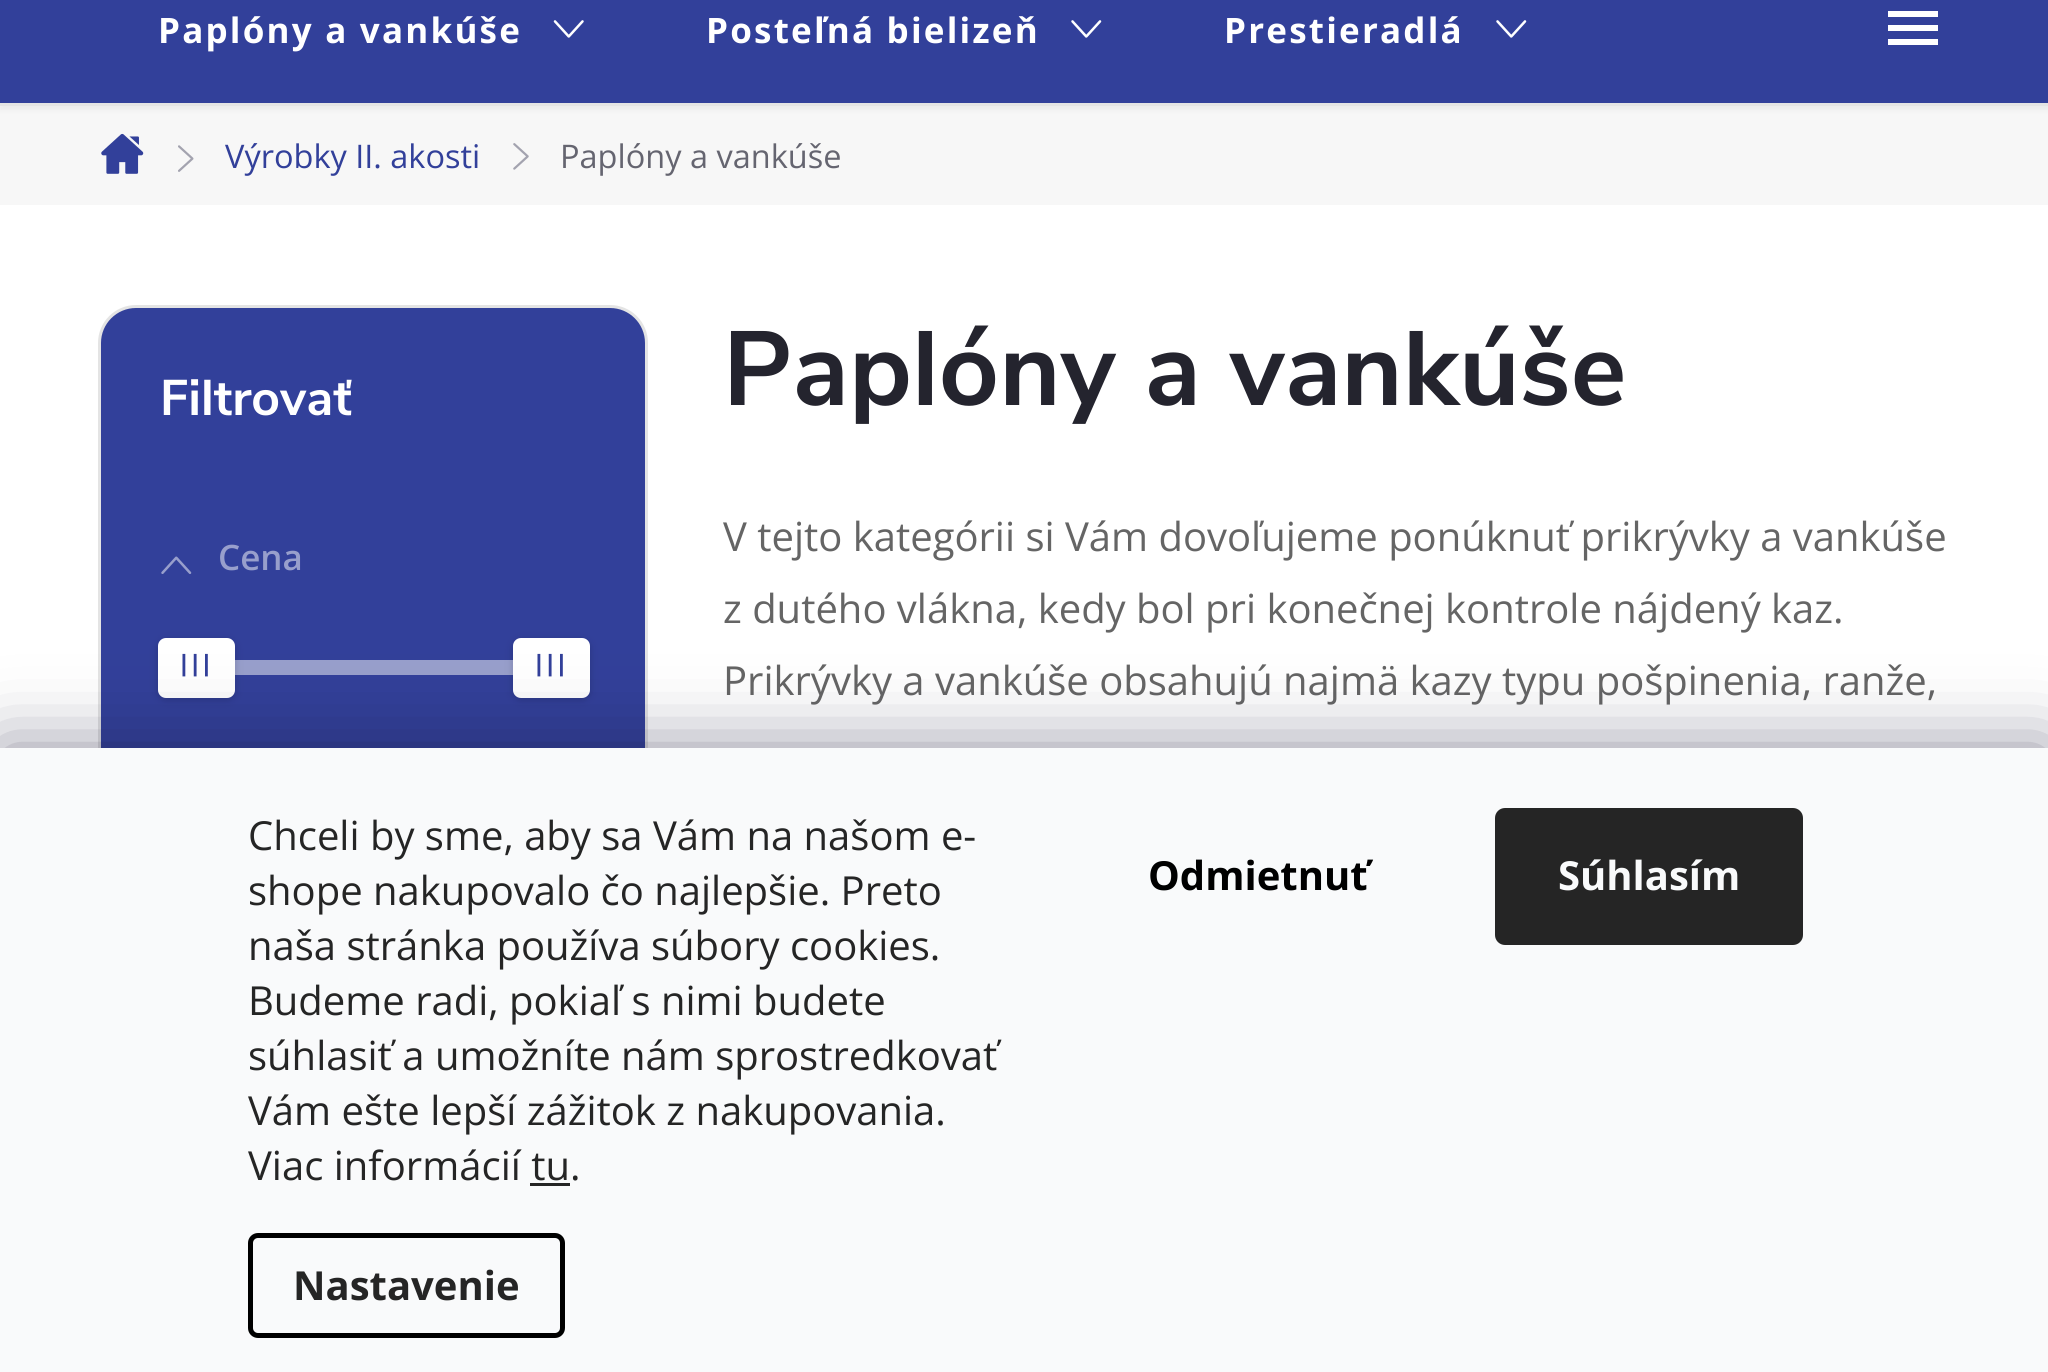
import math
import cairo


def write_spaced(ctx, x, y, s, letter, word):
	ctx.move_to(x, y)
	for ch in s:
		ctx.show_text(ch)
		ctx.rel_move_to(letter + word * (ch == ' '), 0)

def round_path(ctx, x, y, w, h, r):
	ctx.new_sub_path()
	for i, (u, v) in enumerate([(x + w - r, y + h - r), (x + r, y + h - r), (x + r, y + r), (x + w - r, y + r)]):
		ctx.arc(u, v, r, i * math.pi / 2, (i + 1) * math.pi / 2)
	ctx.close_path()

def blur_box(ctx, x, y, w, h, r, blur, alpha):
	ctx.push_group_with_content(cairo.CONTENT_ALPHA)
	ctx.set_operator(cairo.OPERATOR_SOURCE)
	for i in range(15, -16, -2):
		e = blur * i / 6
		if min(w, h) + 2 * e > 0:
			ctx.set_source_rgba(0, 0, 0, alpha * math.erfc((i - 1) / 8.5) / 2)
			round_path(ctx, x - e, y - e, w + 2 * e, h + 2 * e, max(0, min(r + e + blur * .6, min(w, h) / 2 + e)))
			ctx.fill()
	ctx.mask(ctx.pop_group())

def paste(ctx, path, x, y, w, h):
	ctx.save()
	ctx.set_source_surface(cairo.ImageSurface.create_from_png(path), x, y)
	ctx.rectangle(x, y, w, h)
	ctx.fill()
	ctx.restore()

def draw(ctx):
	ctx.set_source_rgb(1, 1, 1)
	ctx.paint()
	ctx.set_source_rgb(0.965, 0.965, 0.965)
	ctx.rectangle(0, 106, 2048, 99)
	ctx.fill()
	ctx.set_source_rgb(0, 0, 0)
	blur_box(ctx, 0, -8, 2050, 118, 0, 2.5, 0.05)
	ctx.set_source_rgb(0.196, 0.251, 0.604)
	ctx.rectangle(0, 0, 2048, 103)
	ctx.fill()
	ctx.set_source_rgb(0.894, 0.894, 0.894)
	ctx.rectangle(0, 103, 2048, 3)
	ctx.fill()
	ctx.select_font_face('Open Sans', cairo.FONT_SLANT_NORMAL, cairo.FONT_WEIGHT_BOLD)
	ctx.set_font_size(35)
	ctx.set_source_rgb(1, 1, 1)
	write_spaced(ctx, 158, 43, 'Paplóny a vankúše', 2.2, 0)
	paste(ctx, 'media/1.png', 553, 20, 31, 18)
	write_spaced(ctx, 706, 43, 'Posteľná bielizeň', 2.2, 0)
	paste(ctx, 'media/2.png', 1071, 20, 31, 18)
	write_spaced(ctx, 1224, 43, 'Prestieradlá', 2.2, 0)
	paste(ctx, 'media/2.png', 1496, 20, 31, 18)
	ctx.new_path()
	ctx.move_to(1888, 45)
	ctx.line_to(1938, 45)
	ctx.line_to(1938, 39)
	ctx.line_to(1888, 39)
	ctx.close_path()
	ctx.move_to(1888, 31)
	ctx.line_to(1938, 31)
	ctx.line_to(1938, 25)
	ctx.line_to(1888, 25)
	ctx.close_path()
	ctx.move_to(1888, 11)
	ctx.line_to(1888, 17)
	ctx.line_to(1938, 17)
	ctx.line_to(1938, 11)
	ctx.close_path()
	ctx.fill()
	paste(ctx, 'media/3.png', 101, 133, 43, 41)
	paste(ctx, 'media/4.png', 178, 145, 16, 27)
	ctx.select_font_face('Open Sans')
	ctx.set_font_size(32.5)
	ctx.set_source_rgb(0.196, 0.251, 0.604)
	ctx.move_to(225, 168)
	ctx.show_text('Výrobky II. akosti')
	paste(ctx, 'media/5.png', 513, 143, 16, 27)
	ctx.set_source_rgb(0.396, 0.396, 0.439)
	ctx.move_to(560, 168)
	ctx.show_text('Paplóny a vankúše')
	ctx.set_source_rgb(0.196, 0.251, 0.604)
	round_path(ctx, 99.5, 306.5, 547, 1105, 36.5)
	ctx.fill_preserve()
	ctx.set_source_rgb(0.894, 0.894, 0.894)
	ctx.set_line_width(3)
	ctx.stroke()
	ctx.select_font_face('Nunito Sans', cairo.FONT_SLANT_NORMAL, cairo.FONT_WEIGHT_BOLD)
	ctx.set_font_size(50)
	ctx.set_source_rgb(1, 1, 1)
	ctx.move_to(160, 415)
	ctx.show_text('Filtrovať')
	paste(ctx, 'media/6.png', 161, 556, 31, 18)
	ctx.select_font_face('Open Sans SemiBold')
	ctx.set_font_size(35)
	ctx.set_source_rgb(0.596, 0.624, 0.8)
	ctx.move_to(218, 570)
	ctx.show_text('Cena')
	ctx.rectangle(235, 660, 278, 15)
	ctx.fill()
	ctx.set_source_rgb(0, 0, 0)
	blur_box(ctx, 158, 640, 77, 60, 8, 4, 0.17)
	ctx.set_source_rgb(1, 1, 1)
	round_path(ctx, 158, 638, 77, 60, 8)
	ctx.fill()
	paste(ctx, 'media/7.png', 182, 653, 26, 24)
	ctx.set_source_rgb(0, 0, 0)
	blur_box(ctx, 513, 640, 77, 60, 8, 4, 0.17)
	ctx.set_source_rgb(1, 1, 1)
	round_path(ctx, 513, 638, 77, 60, 8)
	ctx.fill()
	paste(ctx, 'media/7.png', 537, 653, 26, 24)
	ctx.select_font_face('Nunito Sans', cairo.FONT_SLANT_NORMAL, cairo.FONT_WEIGHT_BOLD)
	ctx.set_font_size(105)
	ctx.set_source_rgb(0.141, 0.141, 0.18)
	ctx.move_to(723, 405)
	ctx.show_text('Paplóny a vankúše')
	ctx.select_font_face('Open Sans')
	ctx.set_font_size(40)
	ctx.set_source_rgb(0.396, 0.396, 0.396)
	for x, y, s in [
		(723, 551, 'V tejto kategórii si Vám dovoľujeme ponúknuť prikrývky a vankúše'),
		(723, 623, 'z dutého vlákna, kedy bol pri konečnej kontrole nájdený kaz.'),
		(723, 695, 'Prikrývky a vankúše obsahujú najmä kazy typu pošpinenia, ranže,'),
	]:
		ctx.move_to(x, y)
		ctx.show_text(s)
	ctx.set_source_rgb(0.106, 0.098, 0.224)
	blur_box(ctx, 0, 748, 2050, 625, 0, 37.5, 0.5)
	ctx.set_source_rgb(0.973, 0.98, 0.984)
	ctx.rectangle(0, 748, 2048, 624)
	ctx.fill()
	ctx.set_source_rgb(0.145, 0.145, 0.145)
	for x, y, s in [
		(248, 850, 'Chceli by sme, aby sa Vám na našom e-'),
		(248, 905, 'shope nakupovalo čo najlepšie. Preto'),
		(248, 960, 'naša stránka používa súbory cookies.'),
		(248, 1015, 'Budeme radi, pokiaľ s nimi budete'),
		(248, 1070, 'súhlasiť a umožníte nám sprostredkovať'),
		(248, 1125, 'Vám ešte lepší zážitok z nakupovania.'),
		(248, 1180, 'Viac informácií tu.'),
	]:
		ctx.move_to(x, y)
		ctx.show_text(s)
	ctx.rectangle(530, 1183, 40, 3)
	ctx.fill()
	round_path(ctx, 250.5, 1235.5, 312, 100, 7.5)
	ctx.set_source_rgb(0, 0, 0)
	ctx.set_line_width(5)
	ctx.stroke()
	ctx.select_font_face('Open Sans', cairo.FONT_SLANT_NORMAL, cairo.FONT_WEIGHT_BOLD)
	ctx.set_source_rgb(0.145, 0.145, 0.145)
	ctx.move_to(293, 1300)
	ctx.show_text('Nastavenie')
	ctx.set_source_rgb(0, 0, 0)
	ctx.move_to(1148, 890)
	ctx.show_text('Odmietnuť')
	ctx.set_source_rgb(0.145, 0.145, 0.145)
	round_path(ctx, 1495, 808, 308, 137, 10)
	ctx.fill()
	ctx.set_source_rgb(0.973, 0.98, 0.984)
	ctx.move_to(1558, 890)
	ctx.show_text('Súhlasím')


surface = cairo.ImageSurface(cairo.FORMAT_RGB24, 2048, 1372)
ctx = cairo.Context(surface)
options = cairo.FontOptions()
options.set_hint_metrics(cairo.HINT_METRICS_OFF)
options.set_hint_style(cairo.HINT_STYLE_NONE)
ctx.set_font_options(options)
ctx.set_miter_limit(4)
draw(ctx)
surface.write_to_png('image.png')
